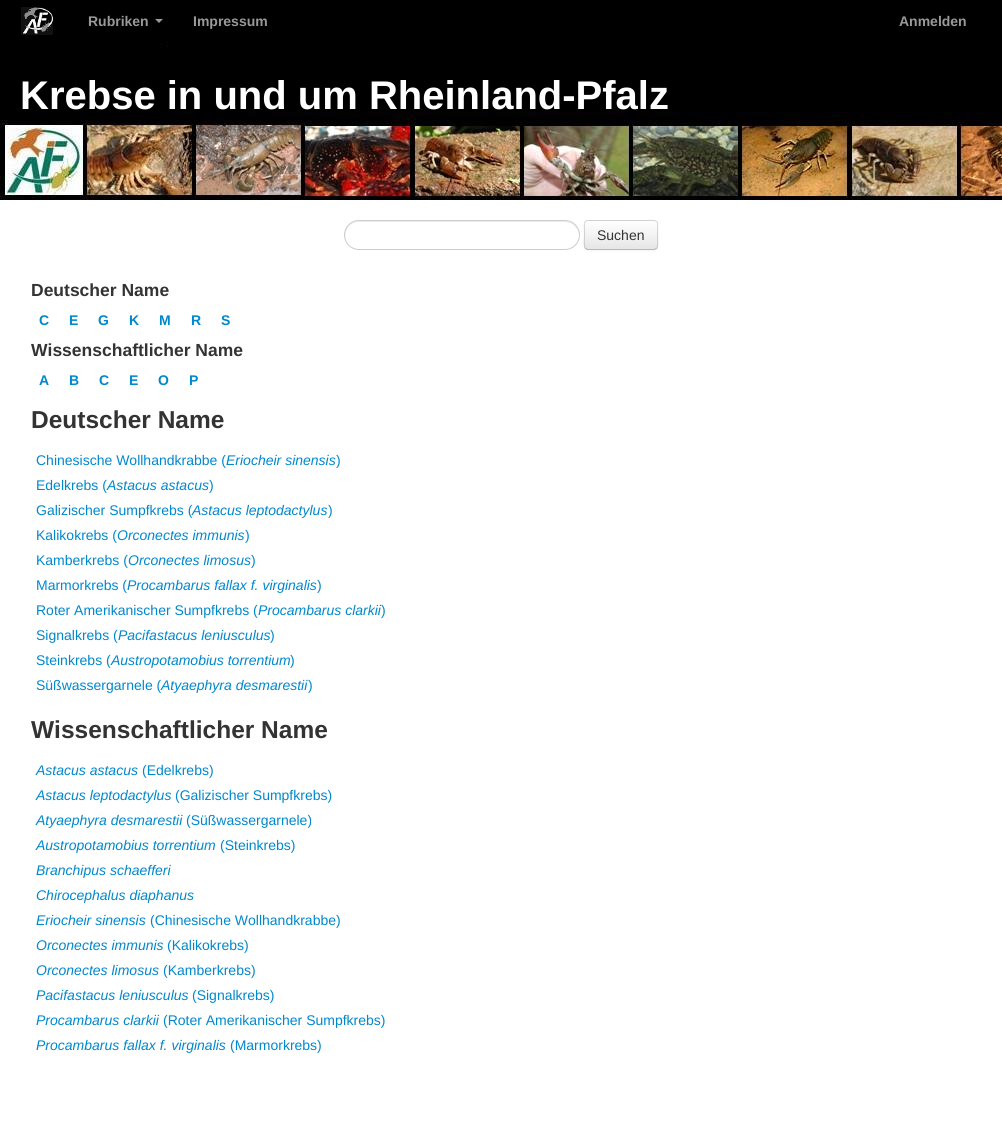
import math
import cairo


def round_path(ctx, x, y, w, h, r):
	ctx.new_sub_path()
	for i, (u, v) in enumerate([(x + w - r, y + h - r), (x + r, y + h - r), (x + r, y + r), (x + w - r, y + r)]):
		ctx.arc(u, v, r, i * math.pi / 2, (i + 1) * math.pi / 2)
	ctx.close_path()

def blur_box(ctx, x, y, w, h, r, blur, alpha):
	ctx.push_group_with_content(cairo.CONTENT_ALPHA)
	ctx.set_operator(cairo.OPERATOR_SOURCE)
	for i in range(15, -16, -2):
		e = blur * i / 6
		if min(w, h) + 2 * e > 0:
			ctx.set_source_rgba(0, 0, 0, alpha * math.erfc((i - 1) / 8.5) / 2)
			round_path(ctx, x - e, y - e, w + 2 * e, h + 2 * e, max(0, min(r + e + blur * .6, min(w, h) / 2 + e)))
			ctx.fill()
	ctx.mask(ctx.pop_group())

def paste(ctx, path, x, y, w, h):
	ctx.save()
	ctx.set_source_surface(cairo.ImageSurface.create_from_png(path), x, y)
	ctx.rectangle(x, y, w, h)
	ctx.fill()
	ctx.restore()

def draw(ctx):
	ctx.set_source_rgb(1, 1, 1)
	ctx.paint()
	ctx.set_source_rgb(0, 0, 0)
	ctx.rectangle(0, 0, 1002, 42)
	ctx.fill()
	paste(ctx, 'media/1.png', 21, 7, 32, 28)
	ctx.select_font_face('Liberation Sans', cairo.FONT_SLANT_NORMAL, cairo.FONT_WEIGHT_BOLD)
	ctx.set_font_size(14)
	ctx.set_source_rgb(0.6, 0.6, 0.6)
	ctx.move_to(88, 26)
	ctx.show_text('Rubriken')
	ctx.new_path()
	ctx.move_to(155, 19)
	ctx.line_to(163, 19)
	ctx.line_to(159, 23)
	ctx.close_path()
	ctx.fill()
	ctx.move_to(193, 26)
	ctx.show_text('Impressum')
	ctx.move_to(899, 26)
	ctx.show_text('Anmelden')
	paste(ctx, 'media/2.png', 0, 42, 1002, 158)
	ctx.set_font_size(40)
	ctx.set_source_rgb(1, 1, 1)
	ctx.move_to(20, 109)
	ctx.show_text('Krebse in und um Rheinland-Pfalz')
	ctx.set_source_rgb(0.925, 0.925, 0.925)
	ctx.new_path()
	ctx.move_to(359, 222)
	ctx.line_to(565, 222)
	ctx.line_to(570, 223)
	ctx.curve_to(575, 225, 578, 230, 579, 235)
	ctx.curve_to(579, 227, 573, 221, 565, 221)
	ctx.line_to(359, 221)
	ctx.curve_to(351, 221, 345, 227, 345, 235)
	ctx.curve_to(345, 237, 345, 239, 346, 241)
	ctx.curve_to(344, 232, 348, 222, 359, 222)
	ctx.close_path()
	ctx.fill()
	round_path(ctx, 344.5, 220.5, 235, 29, 14.5)
	ctx.set_source_rgb(0.8, 0.8, 0.8)
	ctx.set_line_width(1)
	ctx.stroke()
	ctx.set_source_rgb(0, 0, 0)
	blur_box(ctx, 584, 221, 74, 30, 4, 1, 0.05)
	ctx.set_source_rgb(0.961, 0.961, 0.961)
	round_path(ctx, 584, 220, 74, 30, 4)
	ctx.fill()
	ctx.save()
	round_path(ctx, 584, 220, 74, 30, 4)
	ctx.clip()
	gradient = cairo.LinearGradient(621, 221, 621, 249)
	gradient.add_color_stop_rgba(0, 1, 1, 1, 1)
	gradient.add_color_stop_rgba(1, 0.902, 0.902, 0.902, 1)
	ctx.set_source(gradient)
	ctx.rectangle(584, 221, 74, 28)
	ctx.fill()
	ctx.restore()
	ctx.new_path()
	ctx.move_to(656.5, 248.5)
	ctx.line_to(654.5, 249.5)
	ctx.line_to(587.5, 249.5)
	ctx.line_to(585.5, 248.5)
	ctx.set_source_rgba(0, 0, 0, 0.25)
	ctx.stroke()
	ctx.new_path()
	ctx.move_to(585.5, 248.5)
	ctx.curve_to(583.5, 246.5, 584.5, 238, 584.5, 235)
	ctx.curve_to(584.5, 218.5, 582, 220.5, 599, 220.5)
	ctx.line_to(643, 220.5)
	ctx.curve_to(660, 220.5, 657.5, 218.5, 657.5, 235)
	ctx.curve_to(657.5, 238, 658.5, 246.5, 656.5, 248.5)
	ctx.set_source_rgba(0, 0, 0, 0.15)
	ctx.stroke()
	ctx.select_font_face('Liberation Sans')
	ctx.set_font_size(14)
	ctx.set_source_rgb(0.2, 0.2, 0.2)
	ctx.move_to(597, 240)
	ctx.show_text('Suchen')
	ctx.select_font_face('Liberation Sans', cairo.FONT_SLANT_NORMAL, cairo.FONT_WEIGHT_BOLD)
	ctx.set_font_size(17.5)
	ctx.move_to(31, 296)
	ctx.show_text('Deutscher Name')
	ctx.set_font_size(14)
	ctx.set_source_rgb(0, 0.533, 0.8)
	for x, y, s in [
		(39, 325, 'C'),
		(69, 325, 'E'),
		(98, 325, 'G'),
		(129, 325, 'K'),
		(159, 325, 'M'),
		(191, 325, 'R'),
		(221, 325, 'S'),
	]:
		ctx.move_to(x, y)
		ctx.show_text(s)
	ctx.set_font_size(17.5)
	ctx.set_source_rgb(0.2, 0.2, 0.2)
	ctx.move_to(31, 356)
	ctx.show_text('Wissenschaftlicher Name')
	ctx.set_font_size(14)
	ctx.set_source_rgb(0, 0.533, 0.8)
	for x, y, s in [
		(39, 385, 'A'),
		(69, 385, 'B'),
		(99, 385, 'C'),
		(129, 385, 'E'),
		(158, 385, 'O'),
		(189, 385, 'P'),
	]:
		ctx.move_to(x, y)
		ctx.show_text(s)
	ctx.set_font_size(24.5)
	ctx.set_source_rgb(0.2, 0.2, 0.2)
	ctx.move_to(31, 428)
	ctx.show_text('Deutscher Name')
	ctx.select_font_face('Liberation Sans')
	ctx.set_font_size(14)
	ctx.set_source_rgb(0, 0.533, 0.8)
	ctx.move_to(36, 465)
	ctx.show_text('Chinesische Wollhandkrabbe (')
	ctx.select_font_face('Liberation Sans', cairo.FONT_SLANT_ITALIC)
	ctx.move_to(226, 465)
	ctx.show_text('Eriocheir sinensis')
	ctx.select_font_face('Liberation Sans')
	ctx.move_to(336, 465)
	ctx.show_text(')')
	ctx.move_to(36, 490)
	ctx.show_text('Edelkrebs (')
	ctx.select_font_face('Liberation Sans', cairo.FONT_SLANT_ITALIC)
	ctx.move_to(107, 490)
	ctx.show_text('Astacus astacus')
	ctx.select_font_face('Liberation Sans')
	ctx.move_to(209, 490)
	ctx.show_text(')')
	ctx.move_to(36, 515)
	ctx.show_text('Galizischer Sumpfkrebs (')
	ctx.select_font_face('Liberation Sans', cairo.FONT_SLANT_ITALIC)
	ctx.move_to(192, 515)
	ctx.show_text('Astacus leptodactylus')
	ctx.select_font_face('Liberation Sans')
	ctx.move_to(328, 515)
	ctx.show_text(')')
	ctx.move_to(36, 540)
	ctx.show_text('Kalikokrebs (')
	ctx.select_font_face('Liberation Sans', cairo.FONT_SLANT_ITALIC)
	ctx.move_to(117, 540)
	ctx.show_text('Orconectes immunis')
	ctx.select_font_face('Liberation Sans')
	ctx.move_to(245, 540)
	ctx.show_text(')')
	ctx.move_to(36, 565)
	ctx.show_text('Kamberkrebs (')
	ctx.select_font_face('Liberation Sans', cairo.FONT_SLANT_ITALIC)
	ctx.move_to(128, 565)
	ctx.show_text('Orconectes limosus')
	ctx.select_font_face('Liberation Sans')
	ctx.move_to(251, 565)
	ctx.show_text(')')
	ctx.move_to(36, 590)
	ctx.show_text('Marmorkrebs (')
	ctx.select_font_face('Liberation Sans', cairo.FONT_SLANT_ITALIC)
	ctx.move_to(127, 590)
	ctx.show_text('Procambarus fallax f. virginalis')
	ctx.select_font_face('Liberation Sans')
	ctx.move_to(317, 590)
	ctx.show_text(')')
	ctx.move_to(36, 615)
	ctx.show_text('Roter Amerikanischer Sumpfkrebs (')
	ctx.select_font_face('Liberation Sans', cairo.FONT_SLANT_ITALIC)
	ctx.move_to(258, 615)
	ctx.show_text('Procambarus clarkii')
	ctx.select_font_face('Liberation Sans')
	ctx.move_to(381, 615)
	ctx.show_text(')')
	ctx.move_to(36, 640)
	ctx.show_text('Signalkrebs (')
	ctx.select_font_face('Liberation Sans', cairo.FONT_SLANT_ITALIC)
	ctx.move_to(118, 640)
	ctx.show_text('Pacifastacus leniusculus')
	ctx.select_font_face('Liberation Sans')
	ctx.move_to(270, 640)
	ctx.show_text(')')
	ctx.move_to(36, 665)
	ctx.show_text('Steinkrebs (')
	ctx.select_font_face('Liberation Sans', cairo.FONT_SLANT_ITALIC)
	ctx.move_to(111, 665)
	ctx.show_text('Austropotamobius torrentium')
	ctx.select_font_face('Liberation Sans')
	ctx.move_to(290, 665)
	ctx.show_text(')')
	ctx.move_to(36, 690)
	ctx.show_text('Süßwassergarnele (')
	ctx.select_font_face('Liberation Sans', cairo.FONT_SLANT_ITALIC)
	ctx.move_to(161, 690)
	ctx.show_text('Atyaephyra desmarestii')
	ctx.select_font_face('Liberation Sans')
	ctx.move_to(308, 690)
	ctx.show_text(')')
	ctx.select_font_face('Liberation Sans', cairo.FONT_SLANT_NORMAL, cairo.FONT_WEIGHT_BOLD)
	ctx.set_font_size(24.5)
	ctx.set_source_rgb(0.2, 0.2, 0.2)
	ctx.move_to(31, 738)
	ctx.show_text('Wissenschaftlicher Name')
	ctx.select_font_face('Liberation Sans', cairo.FONT_SLANT_ITALIC)
	ctx.set_font_size(14)
	ctx.set_source_rgb(0, 0.533, 0.8)
	ctx.move_to(36, 775)
	ctx.show_text('Astacus astacus')
	ctx.select_font_face('Liberation Sans')
	ctx.move_to(142, 775)
	ctx.show_text('(Edelkrebs)')
	ctx.select_font_face('Liberation Sans', cairo.FONT_SLANT_ITALIC)
	ctx.move_to(36, 800)
	ctx.show_text('Astacus leptodactylus')
	ctx.select_font_face('Liberation Sans')
	ctx.move_to(175, 800)
	ctx.show_text('(Galizischer Sumpfkrebs)')
	ctx.select_font_face('Liberation Sans', cairo.FONT_SLANT_ITALIC)
	ctx.move_to(36, 825)
	ctx.show_text('Atyaephyra desmarestii')
	ctx.select_font_face('Liberation Sans')
	ctx.move_to(186, 825)
	ctx.show_text('(Süßwassergarnele)')
	ctx.select_font_face('Liberation Sans', cairo.FONT_SLANT_ITALIC)
	ctx.move_to(36, 850)
	ctx.show_text('Austropotamobius torrentium')
	ctx.select_font_face('Liberation Sans')
	ctx.move_to(220, 850)
	ctx.show_text('(Steinkrebs)')
	ctx.select_font_face('Liberation Sans', cairo.FONT_SLANT_ITALIC)
	for x, y, s in [
		(36, 875, 'Branchipus schaefferi'),
		(36, 900, 'Chirocephalus diaphanus'),
		(36, 925, 'Eriocheir sinensis'),
	]:
		ctx.move_to(x, y)
		ctx.show_text(s)
	ctx.select_font_face('Liberation Sans')
	ctx.move_to(150, 925)
	ctx.show_text('(Chinesische Wollhandkrabbe)')
	ctx.select_font_face('Liberation Sans', cairo.FONT_SLANT_ITALIC)
	ctx.move_to(36, 950)
	ctx.show_text('Orconectes immunis')
	ctx.select_font_face('Liberation Sans')
	ctx.move_to(167, 950)
	ctx.show_text('(Kalikokrebs)')
	ctx.select_font_face('Liberation Sans', cairo.FONT_SLANT_ITALIC)
	ctx.move_to(36, 975)
	ctx.show_text('Orconectes limosus')
	ctx.select_font_face('Liberation Sans')
	ctx.move_to(163, 975)
	ctx.show_text('(Kamberkrebs)')
	ctx.select_font_face('Liberation Sans', cairo.FONT_SLANT_ITALIC)
	ctx.move_to(36, 1000)
	ctx.show_text('Pacifastacus leniusculus')
	ctx.select_font_face('Liberation Sans')
	ctx.move_to(192, 1000)
	ctx.show_text('(Signalkrebs)')
	ctx.select_font_face('Liberation Sans', cairo.FONT_SLANT_ITALIC)
	ctx.move_to(36, 1025)
	ctx.show_text('Procambarus clarkii')
	ctx.select_font_face('Liberation Sans')
	ctx.move_to(163, 1025)
	ctx.show_text('(Roter Amerikanischer Sumpfkrebs)')
	ctx.select_font_face('Liberation Sans', cairo.FONT_SLANT_ITALIC)
	ctx.move_to(36, 1050)
	ctx.show_text('Procambarus fallax f. virginalis')
	ctx.select_font_face('Liberation Sans')
	ctx.move_to(230, 1050)
	ctx.show_text('(Marmorkrebs)')


surface = cairo.ImageSurface(cairo.FORMAT_RGB24, 1002, 1137)
ctx = cairo.Context(surface)
options = cairo.FontOptions()
options.set_hint_metrics(cairo.HINT_METRICS_OFF)
options.set_hint_style(cairo.HINT_STYLE_NONE)
ctx.set_font_options(options)
ctx.set_miter_limit(4)
draw(ctx)
surface.write_to_png('image.png')
